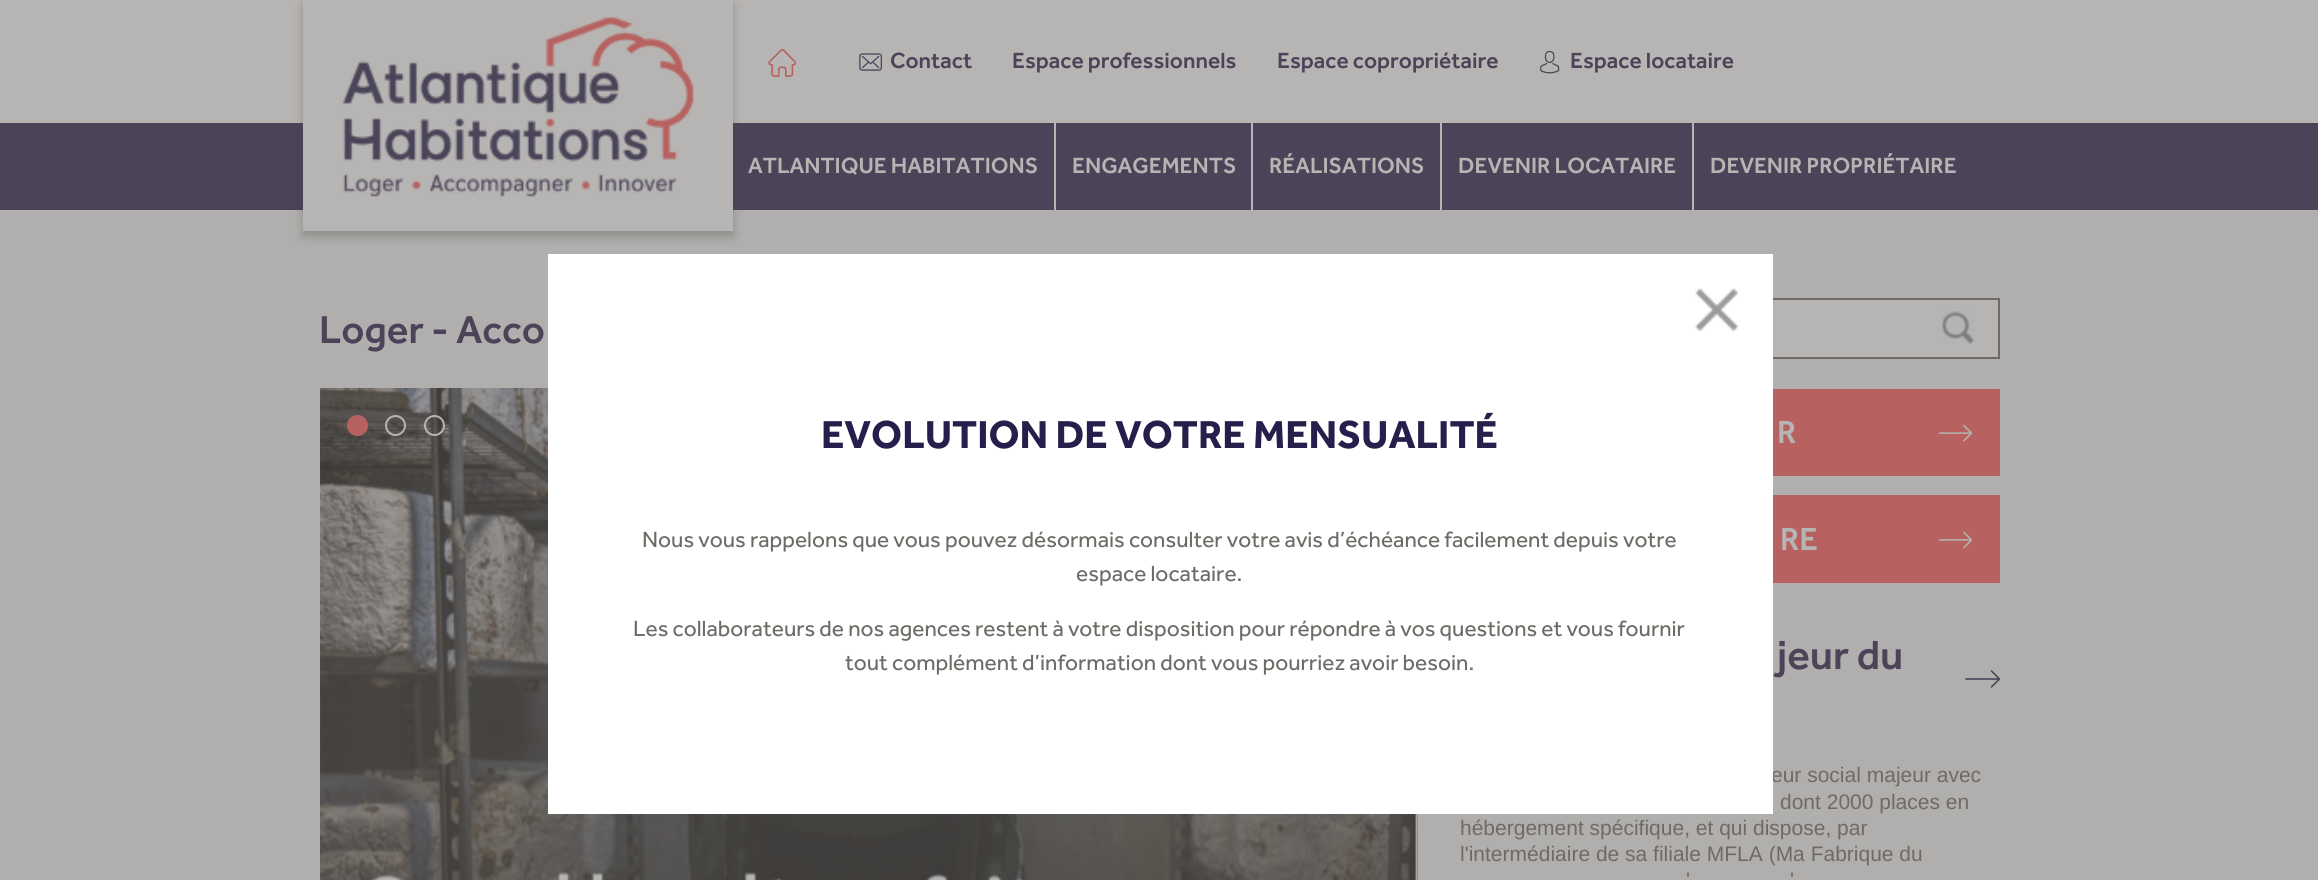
import math
import cairo


def round_path(ctx, x, y, w, h, r):
	ctx.new_sub_path()
	for i, (u, v) in enumerate([(x + w - r, y + h - r), (x + r, y + h - r), (x + r, y + r), (x + w - r, y + r)]):
		ctx.arc(u, v, r, i * math.pi / 2, (i + 1) * math.pi / 2)
	ctx.close_path()

def blur_box(ctx, x, y, w, h, r, blur, alpha):
	ctx.push_group_with_content(cairo.CONTENT_ALPHA)
	ctx.set_operator(cairo.OPERATOR_SOURCE)
	for i in range(15, -16, -2):
		e = blur * i / 6
		if min(w, h) + 2 * e > 0:
			ctx.set_source_rgba(0, 0, 0, alpha * math.erfc((i - 1) / 8.5) / 2)
			round_path(ctx, x - e, y - e, w + 2 * e, h + 2 * e, max(0, min(r + e + blur * .6, min(w, h) / 2 + e)))
			ctx.fill()
	ctx.mask(ctx.pop_group())

def paste(ctx, path, x, y, w, h):
	ctx.save()
	ctx.set_source_surface(cairo.ImageSurface.create_from_png(path), x, y)
	ctx.rectangle(x, y, w, h)
	ctx.fill()
	ctx.restore()

def draw(ctx):
	ctx.set_source_rgb(0.69, 0.686, 0.678)
	ctx.paint()
	ctx.set_source_rgb(0.718, 0.71, 0.702)
	ctx.rectangle(0, 0, 2318, 123)
	ctx.fill()
	ctx.set_source_rgb(0.294, 0.267, 0.349)
	ctx.rectangle(0, 123, 2318, 87)
	ctx.fill()
	ctx.set_source_rgb(0.216, 0.208, 0.2)
	blur_box(ctx, 303, 5, 430, 231, 0, 5, 0.3)
	ctx.set_source_rgb(0.718, 0.71, 0.702)
	ctx.rectangle(303, 0, 430, 231)
	ctx.fill()
	paste(ctx, 'media/1.png', 342, 17, 352, 180)
	paste(ctx, 'media/2.png', 768, 49, 28, 28)
	paste(ctx, 'media/3.png', 859, 53, 23, 18)
	ctx.select_font_face('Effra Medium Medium')
	ctx.set_font_size(22.75)
	ctx.set_source_rgb(0.294, 0.267, 0.349)
	for x, y, s in [
		(890, 68, 'Contact'),
		(1012, 68, 'Espace professionnels'),
		(1277, 68, 'Espace copropriétaire'),
	]:
		ctx.move_to(x, y)
		ctx.show_text(s)
	paste(ctx, 'media/4.png', 1540, 51, 20, 23)
	ctx.move_to(1570, 68)
	ctx.show_text('Espace locataire')
	ctx.set_source_rgb(0.718, 0.71, 0.702)
	ctx.move_to(748, 173)
	ctx.show_text('ATLANTIQUE HABITATIONS')
	ctx.rectangle(1054, 123, 2, 87)
	ctx.fill()
	ctx.move_to(1072, 173)
	ctx.show_text('ENGAGEMENTS')
	ctx.rectangle(1251, 123, 2, 87)
	ctx.fill()
	ctx.move_to(1269, 173)
	ctx.show_text('RÉALISATIONS')
	ctx.rectangle(1440, 123, 2, 87)
	ctx.fill()
	ctx.move_to(1458, 173)
	ctx.show_text('DEVENIR LOCATAIRE')
	ctx.rectangle(1692, 123, 2, 87)
	ctx.fill()
	ctx.move_to(1710, 173)
	ctx.show_text('DEVENIR PROPRIÉTAIRE')
	ctx.set_font_size(40.25)
	ctx.set_source_rgb(0.294, 0.267, 0.349)
	ctx.move_to(319, 343)
	ctx.show_text('Loger - Acco')
	paste(ctx, 'media/5.png', 320, 388, 1097, 492)
	paste(ctx, 'media/6.png', 1417, 814, 1, 66)
	ctx.set_source_rgb(0.718, 0.384, 0.376)
	ctx.arc(357.5, 425.5, 9.5, 0, 2 * math.pi)
	ctx.fill_preserve()
	ctx.stroke()
	ctx.arc(395.5, 425.5, 9.5, 0, 2 * math.pi)
	ctx.set_source_rgb(0.718, 0.71, 0.702)
	ctx.stroke()
	ctx.arc(434.5, 425.5, 9.5, 0, 2 * math.pi)
	ctx.stroke()
	ctx.rectangle(1773, 300, 225, 57)
	ctx.fill()
	ctx.rectangle(1466, 299, 533, 59)
	ctx.set_source_rgb(0.431, 0.416, 0.4)
	ctx.stroke()
	paste(ctx, 'media/7.png', 1942, 311, 33, 33)
	ctx.set_source_rgb(0.718, 0.384, 0.376)
	ctx.rectangle(1773, 389, 227, 87)
	ctx.fill()
	ctx.set_font_size(33)
	ctx.set_source_rgb(0.718, 0.71, 0.702)
	ctx.move_to(1777, 443)
	ctx.show_text('R')
	paste(ctx, 'media/8.png', 1939, 424, 33, 18)
	ctx.set_source_rgb(0.718, 0.384, 0.376)
	ctx.rectangle(1773, 495, 227, 88)
	ctx.fill()
	ctx.set_source_rgb(0.718, 0.71, 0.702)
	ctx.move_to(1780, 550)
	ctx.show_text('RE')
	paste(ctx, 'media/9.png', 1939, 531, 33, 18)
	ctx.set_font_size(42)
	ctx.set_source_rgb(0.294, 0.267, 0.349)
	ctx.move_to(1777, 669)
	ctx.show_text('jeur du')
	paste(ctx, 'media/10.png', 1965, 670, 35, 18)
	ctx.select_font_face('Liberation Sans')
	ctx.set_font_size(21)
	ctx.set_source_rgb(0.431, 0.416, 0.4)
	for x, y, s in [
		(1771, 782, 'eur social majeur avec'),
		(1780, 809, 'dont 2000 places en'),
		(1460, 835, 'hébergement spécifique, et qui dispose, par'),
		(1460, 861, 'l\'intermédiaire de sa filiale MFLA (Ma Fabrique du'),
		(1686, 887, '\''),
		(1790, 887, '\''),
	]:
		ctx.move_to(x, y)
		ctx.show_text(s)
	ctx.set_source_rgb(1, 1, 1)
	ctx.rectangle(548, 254, 1225, 560)
	ctx.fill()
	paste(ctx, 'media/11.png', 1695, 288, 43, 43)
	ctx.select_font_face('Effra', cairo.FONT_SLANT_NORMAL, cairo.FONT_WEIGHT_BOLD)
	ctx.set_font_size(40.25)
	ctx.set_source_rgb(0.153, 0.118, 0.298)
	ctx.move_to(821, 448)
	ctx.show_text('EVOLUTION DE VOTRE MENSUALITÉ')
	ctx.select_font_face('Effra')
	ctx.set_font_size(22.75)
	ctx.set_source_rgb(0.431, 0.416, 0.4)
	for x, y, s in [
		(642, 547, 'Nous vous rappelons que vous pouvez désormais consulter votre avis d’échéance facilement depuis votre'),
		(1076, 581, 'espace locataire.'),
		(633, 636, 'Les collaborateurs de nos agences restent à votre disposition pour répondre à vos questions et vous fournir'),
		(845, 670, 'tout complément d’information dont vous pourriez avoir besoin.'),
	]:
		ctx.move_to(x, y)
		ctx.show_text(s)


surface = cairo.ImageSurface(cairo.FORMAT_RGB24, 2318, 880)
ctx = cairo.Context(surface)
options = cairo.FontOptions()
options.set_hint_metrics(cairo.HINT_METRICS_OFF)
options.set_hint_style(cairo.HINT_STYLE_NONE)
ctx.set_font_options(options)
ctx.set_miter_limit(4)
draw(ctx)
surface.write_to_png('image.png')
